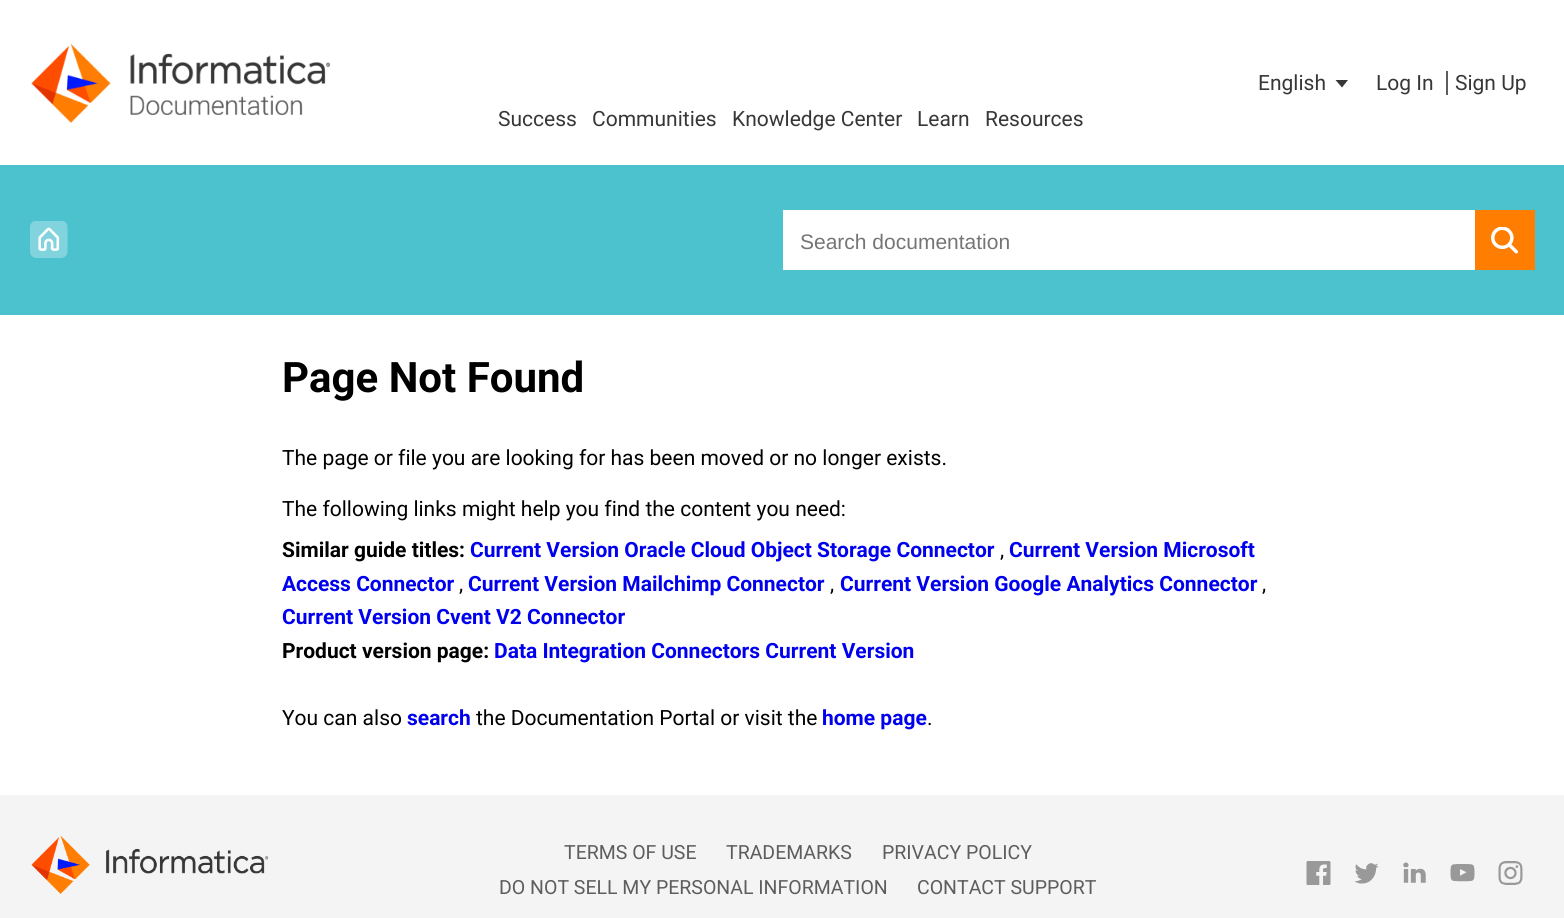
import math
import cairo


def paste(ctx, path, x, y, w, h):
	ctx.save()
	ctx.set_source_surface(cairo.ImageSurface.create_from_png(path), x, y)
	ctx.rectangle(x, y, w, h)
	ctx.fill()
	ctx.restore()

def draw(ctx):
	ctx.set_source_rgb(1, 1, 1)
	ctx.paint()
	paste(ctx, 'media/1.png', 31, 43, 300, 80)
	ctx.select_font_face('Roboto')
	ctx.set_font_size(21)
	ctx.set_source_rgb(0.216, 0.216, 0.216)
	ctx.move_to(1258, 90)
	ctx.show_text('English')
	ctx.new_path()
	ctx.move_to(1348, 80)
	ctx.line_to(1342, 87.5)
	ctx.line_to(1335.5, 80)
	ctx.close_path()
	ctx.fill()
	ctx.move_to(1376, 90)
	ctx.show_text('Log In')
	ctx.set_source_rgb(0.365, 0.365, 0.365)
	ctx.rectangle(1446, 71, 2, 24)
	ctx.fill()
	ctx.set_source_rgb(0.216, 0.216, 0.216)
	for x, y, s in [
		(1455, 90, 'Sign Up'),
		(498, 126, 'Success'),
		(592, 126, 'Communities'),
		(732, 126, 'Knowledge Center'),
		(917, 126, 'Learn'),
		(985, 126, 'Resources'),
	]:
		ctx.move_to(x, y)
		ctx.show_text(s)
	ctx.set_source_rgb(0.302, 0.761, 0.812)
	ctx.rectangle(0, 165, 1564, 150)
	ctx.fill()
	paste(ctx, 'media/2.png', 30, 221, 38, 37)
	ctx.set_source_rgb(1, 1, 1)
	ctx.rectangle(783, 210, 692, 60)
	ctx.fill()
	ctx.select_font_face('Liberation Sans')
	ctx.set_source_rgb(0.459, 0.459, 0.459)
	ctx.move_to(800, 249)
	ctx.show_text('Search documentation')
	ctx.set_source_rgb(1, 0.49, 0)
	ctx.rectangle(1475, 210, 60, 60)
	ctx.fill()
	paste(ctx, 'media/3.png', 1491, 227, 27, 27)
	ctx.select_font_face('Roboto', cairo.FONT_SLANT_NORMAL, cairo.FONT_WEIGHT_BOLD)
	ctx.set_font_size(42)
	ctx.set_source_rgb(0, 0, 0)
	ctx.move_to(282, 392)
	ctx.show_text('Page Not Found')
	ctx.select_font_face('Roboto')
	ctx.set_font_size(21)
	ctx.move_to(282, 465)
	ctx.show_text('The page or file you are looking for has been moved or no longer exists.')
	ctx.move_to(282, 516)
	ctx.show_text('The following links might help you find the content you need:')
	ctx.select_font_face('Roboto', cairo.FONT_SLANT_NORMAL, cairo.FONT_WEIGHT_BOLD)
	ctx.move_to(282, 557)
	ctx.show_text('Similar guide titles:')
	ctx.set_source_rgb(0, 0, 0.933)
	ctx.move_to(470, 557)
	ctx.show_text('Current Version Oracle Cloud Object Storage Connector')
	ctx.select_font_face('Roboto')
	ctx.set_source_rgb(0, 0, 0)
	ctx.move_to(1000, 557)
	ctx.show_text(',')
	ctx.select_font_face('Roboto', cairo.FONT_SLANT_NORMAL, cairo.FONT_WEIGHT_BOLD)
	ctx.set_source_rgb(0, 0, 0.933)
	ctx.move_to(1009, 557)
	ctx.show_text('Current Version Microsoft')
	ctx.move_to(282, 591)
	ctx.show_text('Access Connector')
	ctx.select_font_face('Roboto')
	ctx.set_source_rgb(0, 0, 0)
	ctx.move_to(459, 591)
	ctx.show_text(',')
	ctx.select_font_face('Roboto', cairo.FONT_SLANT_NORMAL, cairo.FONT_WEIGHT_BOLD)
	ctx.set_source_rgb(0, 0, 0.933)
	ctx.move_to(468, 591)
	ctx.show_text('Current Version Mailchimp Connector')
	ctx.select_font_face('Roboto')
	ctx.set_source_rgb(0, 0, 0)
	ctx.move_to(830, 591)
	ctx.show_text(',')
	ctx.select_font_face('Roboto', cairo.FONT_SLANT_NORMAL, cairo.FONT_WEIGHT_BOLD)
	ctx.set_source_rgb(0, 0, 0.933)
	ctx.move_to(840, 591)
	ctx.show_text('Current Version Google Analytics Connector')
	ctx.select_font_face('Roboto')
	ctx.set_source_rgb(0, 0, 0)
	ctx.move_to(1262, 591)
	ctx.show_text(',')
	ctx.select_font_face('Roboto', cairo.FONT_SLANT_NORMAL, cairo.FONT_WEIGHT_BOLD)
	ctx.set_source_rgb(0, 0, 0.933)
	ctx.move_to(282, 624)
	ctx.show_text('Current Version Cvent V2 Connector')
	ctx.set_source_rgb(0, 0, 0)
	ctx.move_to(282, 658)
	ctx.show_text('Product version page:')
	ctx.set_source_rgb(0, 0, 0.933)
	ctx.move_to(494, 658)
	ctx.show_text('Data Integration Connectors Current Version')
	ctx.select_font_face('Roboto')
	ctx.set_source_rgb(0, 0, 0)
	ctx.move_to(282, 725)
	ctx.show_text('You can also')
	ctx.select_font_face('Roboto', cairo.FONT_SLANT_NORMAL, cairo.FONT_WEIGHT_BOLD)
	ctx.set_source_rgb(0, 0, 0.933)
	ctx.move_to(407, 725)
	ctx.show_text('search')
	ctx.select_font_face('Roboto')
	ctx.set_source_rgb(0, 0, 0)
	ctx.move_to(476, 725)
	ctx.show_text('the Documentation Portal or visit the')
	ctx.select_font_face('Roboto', cairo.FONT_SLANT_NORMAL, cairo.FONT_WEIGHT_BOLD)
	ctx.set_source_rgb(0, 0, 0.933)
	ctx.move_to(822, 725)
	ctx.show_text('home page')
	ctx.select_font_face('Roboto')
	ctx.set_source_rgb(0, 0, 0)
	ctx.move_to(927, 725)
	ctx.show_text('.')
	ctx.set_source_rgb(0.957, 0.957, 0.957)
	ctx.rectangle(0, 795, 1564, 123)
	ctx.fill()
	paste(ctx, 'media/4.png', 31, 835, 238, 59)
	ctx.set_font_size(19.5)
	ctx.set_source_rgb(0.365, 0.365, 0.365)
	for x, y, s in [
		(564, 859, 'TERMS OF USE'),
		(726, 859, 'TRADEMARKS'),
		(882, 859, 'PRIVACY POLICY'),
		(499, 894, 'DO NOT SELL MY PERSONAL INFORMATION'),
		(917, 894, 'CONTACT SUPPORT'),
	]:
		ctx.move_to(x, y)
		ctx.show_text(s)
	paste(ctx, 'media/5.png', 1306, 861, 25, 24)
	paste(ctx, 'media/6.png', 1354, 863, 25, 21)
	paste(ctx, 'media/7.png', 1403, 862, 23, 21)
	paste(ctx, 'media/8.png', 1450, 864, 25, 18)
	paste(ctx, 'media/9.png', 1498, 861, 25, 24)


surface = cairo.ImageSurface(cairo.FORMAT_RGB24, 1564, 918)
ctx = cairo.Context(surface)
options = cairo.FontOptions()
options.set_hint_metrics(cairo.HINT_METRICS_OFF)
options.set_hint_style(cairo.HINT_STYLE_NONE)
ctx.set_font_options(options)
ctx.set_miter_limit(4)
draw(ctx)
surface.write_to_png('image.png')
